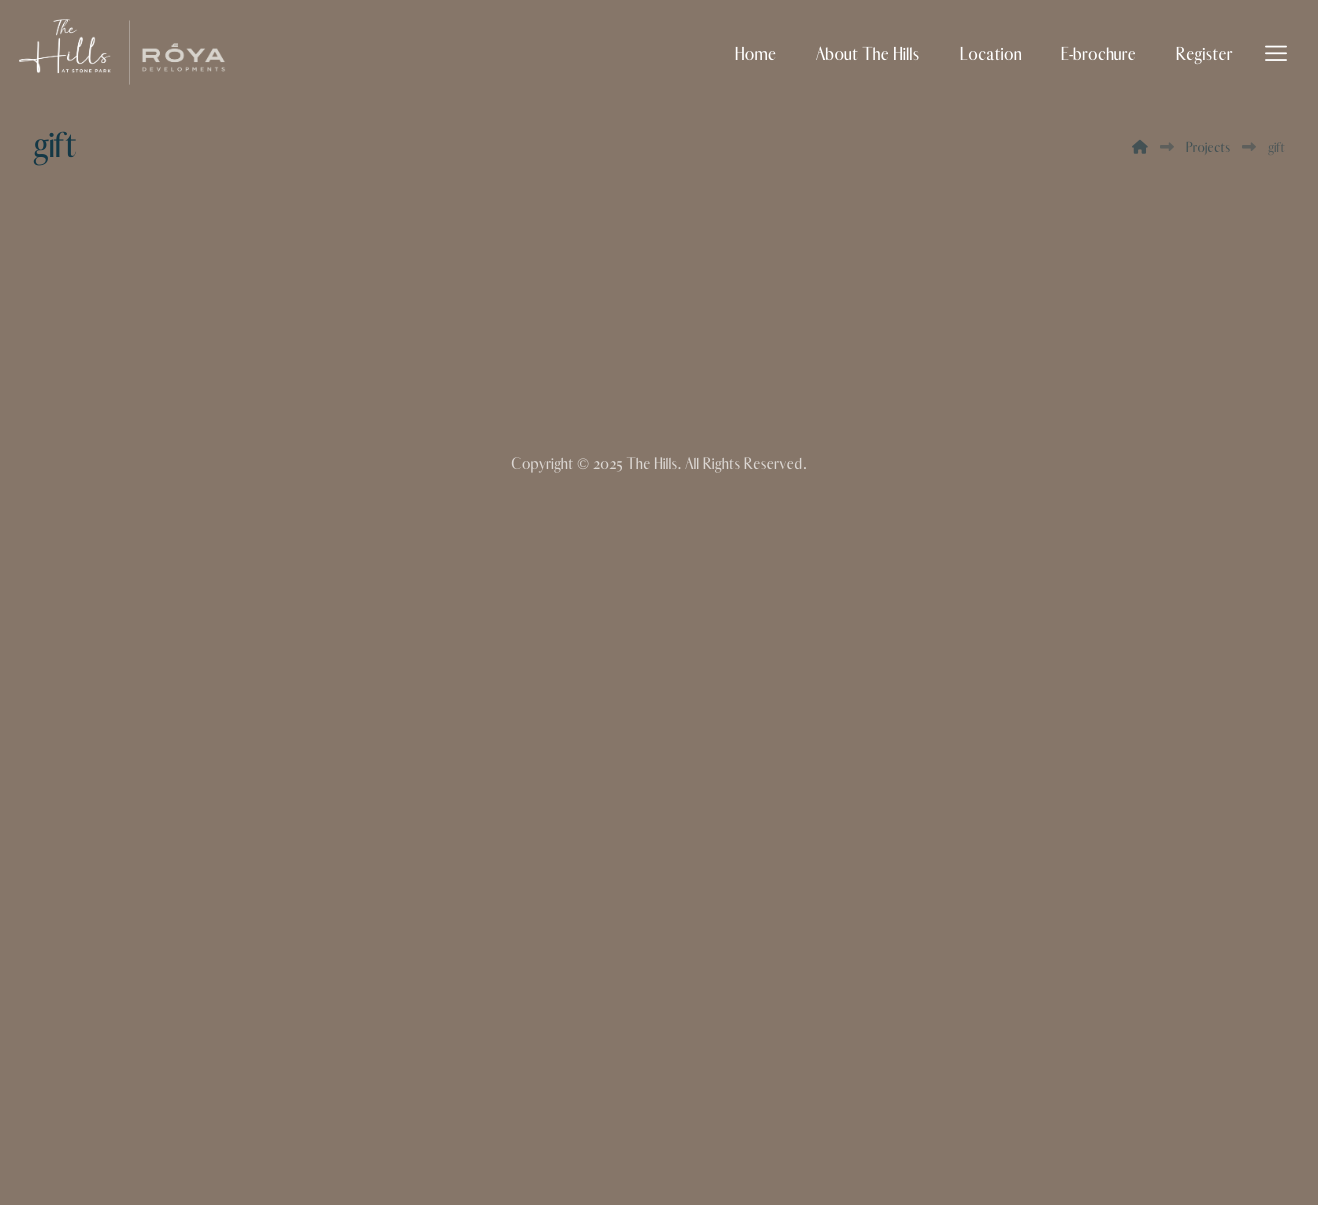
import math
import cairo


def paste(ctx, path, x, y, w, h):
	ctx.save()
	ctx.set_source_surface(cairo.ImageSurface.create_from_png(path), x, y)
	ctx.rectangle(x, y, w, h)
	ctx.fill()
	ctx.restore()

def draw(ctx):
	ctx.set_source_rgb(0.525, 0.463, 0.412)
	ctx.paint()
	paste(ctx, 'media/1.png', 19, 19, 207, 66)
	ctx.select_font_face('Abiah')
	ctx.set_font_size(18)
	ctx.set_source_rgb(1, 1, 1)
	for x, y, s in [
		(735, 60, 'Home'),
		(816, 60, 'About The Hills'),
		(960, 60, 'Location'),
		(1061, 60, 'E-brochure'),
		(1176, 60, 'Register'),
	]:
		ctx.move_to(x, y)
		ctx.show_text(s)
	paste(ctx, 'media/2.png', 1265, 45, 22, 16)
	ctx.set_font_size(36)
	ctx.set_source_rgb(0.082, 0.22, 0.275)
	ctx.move_to(33, 157)
	ctx.show_text('gift')
	paste(ctx, 'media/3.png', 1132, 139, 16, 15)
	paste(ctx, 'media/4.png', 1160, 142, 14, 9)
	ctx.set_font_size(14)
	ctx.set_source_rgb(0.259, 0.318, 0.329)
	ctx.move_to(1186, 152)
	ctx.show_text('Projects')
	paste(ctx, 'media/4.png', 1242, 142, 14, 9)
	ctx.set_source_rgb(0.314, 0.345, 0.345)
	ctx.move_to(1268, 152)
	ctx.show_text('gift')
	ctx.set_font_size(16)
	ctx.set_source_rgb(0.859, 0.839, 0.824)
	ctx.move_to(511, 469)
	ctx.show_text('Copyright')
	ctx.select_font_face('Liberation Serif')
	ctx.move_to(577, 469)
	ctx.show_text('©')
	ctx.select_font_face('Abiah')
	ctx.move_to(593, 469)
	ctx.show_text('2025 The Hills. All Rights Reserved.')


surface = cairo.ImageSurface(cairo.FORMAT_RGB24, 1318, 1205)
ctx = cairo.Context(surface)
options = cairo.FontOptions()
options.set_hint_metrics(cairo.HINT_METRICS_OFF)
options.set_hint_style(cairo.HINT_STYLE_NONE)
ctx.set_font_options(options)
ctx.set_miter_limit(4)
draw(ctx)
surface.write_to_png('image.png')
